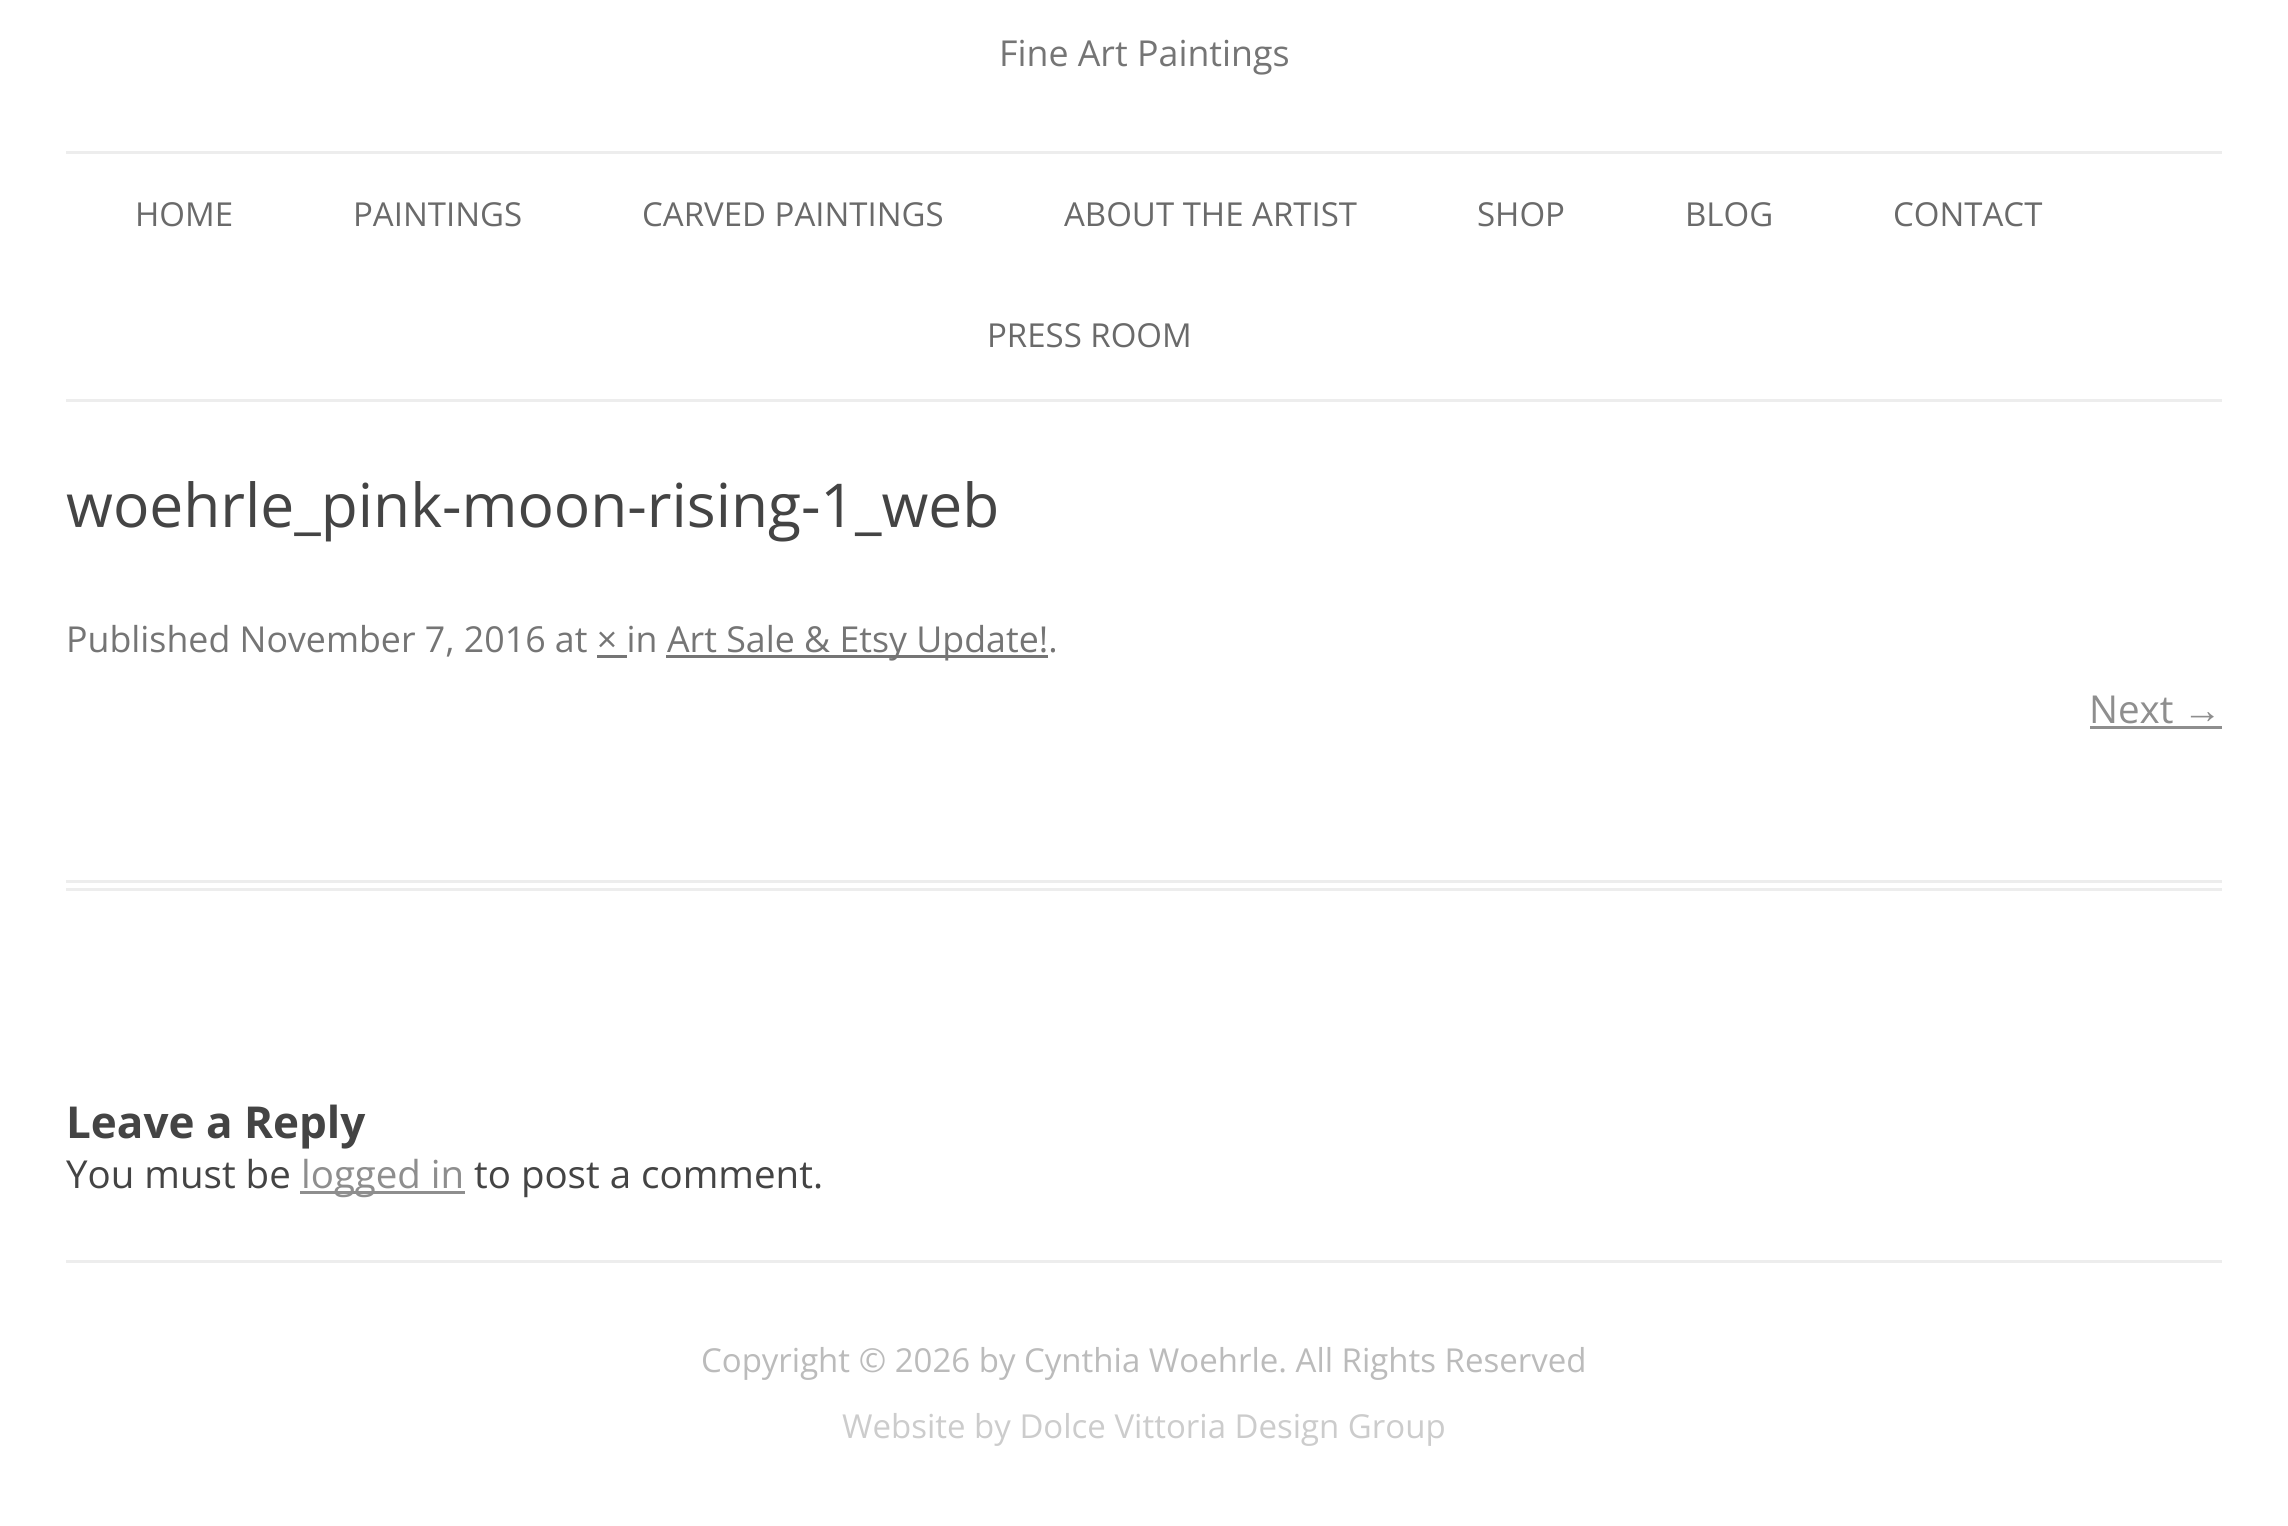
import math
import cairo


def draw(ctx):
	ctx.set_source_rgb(1, 1, 1)
	ctx.paint()
	ctx.select_font_face('Open Sans')
	ctx.set_font_size(35.75)
	ctx.set_source_rgb(0.459, 0.459, 0.459)
	ctx.move_to(999, 66)
	ctx.show_text('Fine Art Paintings')
	ctx.set_source_rgb(0.929, 0.929, 0.929)
	ctx.rectangle(66, 151, 2156, 3)
	ctx.fill()
	ctx.rectangle(66, 399, 2156, 3)
	ctx.fill()
	ctx.set_font_size(33)
	ctx.set_source_rgb(0.416, 0.416, 0.416)
	for x, y, s in [
		(135, 226, 'HOME'),
		(353, 226, 'PAINTINGS'),
		(642, 226, 'CARVED PAINTINGS'),
		(1064, 226, 'ABOUT THE ARTIST'),
		(1477, 226, 'SHOP'),
		(1685, 226, 'BLOG'),
		(1893, 226, 'CONTACT'),
		(987, 347, 'PRESS ROOM'),
	]:
		ctx.move_to(x, y)
		ctx.show_text(s)
	ctx.set_source_rgb(0.929, 0.929, 0.929)
	ctx.rectangle(66, 880, 2156, 3)
	ctx.fill()
	ctx.rectangle(66, 888, 2156, 3)
	ctx.fill()
	ctx.set_font_size(60.5)
	ctx.set_source_rgb(0.267, 0.267, 0.267)
	ctx.move_to(66, 527)
	ctx.show_text('woehrle_pink-moon-rising-1_web')
	ctx.set_font_size(35.75)
	ctx.set_source_rgb(0.459, 0.459, 0.459)
	ctx.move_to(66, 652)
	ctx.show_text('Published November 7, 2016 at × in')
	ctx.rectangle(666, 655, 382, 3)
	ctx.fill()
	ctx.move_to(667, 652)
	ctx.show_text('Art Sale & Etsy Update!.')
	ctx.rectangle(597, 655, 30, 3)
	ctx.fill()
	ctx.set_font_size(38.5)
	ctx.set_source_rgb(0.557, 0.557, 0.557)
	ctx.move_to(2089, 723)
	ctx.show_text('Next')
	ctx.select_font_face('Liberation Sans')
	ctx.move_to(2183, 723)
	ctx.show_text('→')
	ctx.rectangle(2090, 726, 132, 3)
	ctx.fill()
	ctx.select_font_face('Open Sans', cairo.FONT_SLANT_NORMAL, cairo.FONT_WEIGHT_BOLD)
	ctx.set_font_size(44)
	ctx.set_source_rgb(0.267, 0.267, 0.267)
	ctx.move_to(66, 1138)
	ctx.show_text('Leave a Reply')
	ctx.select_font_face('Open Sans')
	ctx.set_font_size(38.5)
	ctx.move_to(66, 1188)
	ctx.show_text('You must be')
	ctx.set_source_rgb(0.557, 0.557, 0.557)
	ctx.rectangle(300, 1191, 165, 3)
	ctx.fill()
	ctx.move_to(301, 1188)
	ctx.show_text('logged in')
	ctx.set_source_rgb(0.267, 0.267, 0.267)
	ctx.move_to(474, 1188)
	ctx.show_text('to post a comment.')
	ctx.set_source_rgb(0.929, 0.929, 0.929)
	ctx.rectangle(66, 1260, 2156, 3)
	ctx.fill()
	ctx.set_font_size(33)
	ctx.set_source_rgb(0.733, 0.733, 0.733)
	ctx.move_to(701, 1372)
	ctx.show_text('Copyright © 2026 by Cynthia Woehrle. All Rights Reserved')
	ctx.set_source_rgb(0.8, 0.8, 0.8)
	ctx.move_to(842, 1438)
	ctx.show_text('Website by Dolce Vittoria Design Group')


surface = cairo.ImageSurface(cairo.FORMAT_RGB24, 2288, 1526)
ctx = cairo.Context(surface)
options = cairo.FontOptions()
options.set_hint_metrics(cairo.HINT_METRICS_OFF)
options.set_hint_style(cairo.HINT_STYLE_NONE)
ctx.set_font_options(options)
ctx.set_miter_limit(4)
draw(ctx)
surface.write_to_png('image.png')
